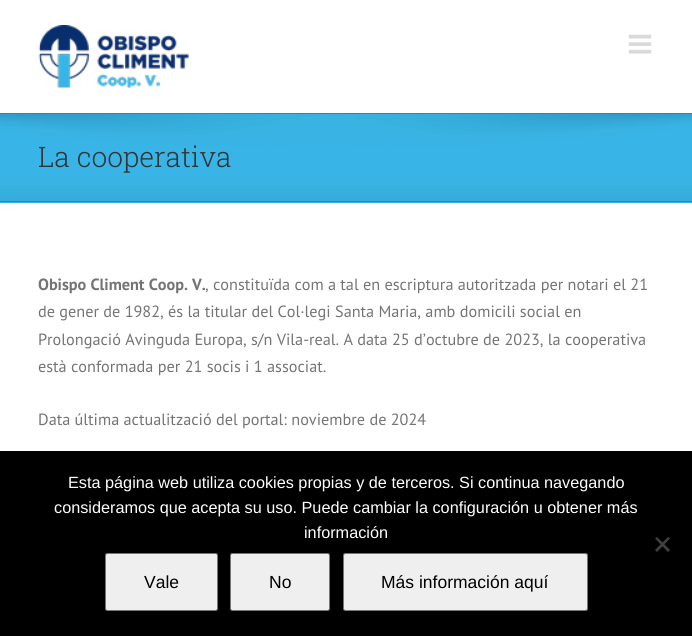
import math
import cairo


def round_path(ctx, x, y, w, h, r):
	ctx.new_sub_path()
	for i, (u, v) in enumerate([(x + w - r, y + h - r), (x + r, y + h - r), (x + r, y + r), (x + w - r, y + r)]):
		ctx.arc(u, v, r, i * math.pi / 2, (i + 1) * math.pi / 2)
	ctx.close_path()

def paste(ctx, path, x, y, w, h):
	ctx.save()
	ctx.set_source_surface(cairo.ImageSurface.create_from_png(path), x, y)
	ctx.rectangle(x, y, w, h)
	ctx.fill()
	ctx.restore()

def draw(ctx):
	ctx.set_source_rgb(1, 1, 1)
	ctx.paint()
	paste(ctx, 'media/1.png', 38, 25, 151, 63)
	paste(ctx, 'media/2.png', 628, 34, 24, 20)
	ctx.set_source_rgb(0.22, 0.71, 0.902)
	ctx.rectangle(0, 202, 692, 1)
	ctx.fill()
	paste(ctx, 'media/3.png', 0, 114, 692, 89)
	ctx.set_source_rgb(0.169, 0.529, 0.71)
	ctx.rectangle(0, 113, 692, 1)
	ctx.fill()
	ctx.rectangle(0, 201, 692, 1)
	ctx.fill()
	ctx.select_font_face('Roboto Slab Light')
	ctx.set_font_size(28.25)
	ctx.set_source_rgb(0.2, 0.2, 0.2)
	ctx.move_to(38, 167)
	ctx.show_text('La cooperativa')
	ctx.select_font_face('PT Sans', cairo.FONT_SLANT_NORMAL, cairo.FONT_WEIGHT_BOLD)
	ctx.set_font_size(16.25)
	ctx.set_source_rgb(0.455, 0.455, 0.455)
	ctx.move_to(38, 290)
	ctx.show_text('Obispo Climent Coop. V.')
	ctx.select_font_face('PT Sans')
	for x, y, s in [
		(205, 290, ', constituïda com a tal en escriptura autoritzada per notari el 21'),
		(38, 317, 'de gener de 1982, és la titular del Col·legi Santa Maria, amb domicili social en'),
		(38, 345, 'Prolongació Avinguda Europa, s/n Vila-real. A data 25 d’octubre de 2023, la cooperativa'),
		(38, 372, 'està conformada per 21 socis i 1 associat.'),
		(38, 425, 'Data última actualització del portal: noviembre de 2024'),
	]:
		ctx.move_to(x, y)
		ctx.show_text(s)
	ctx.set_source_rgb(0, 0, 0)
	ctx.rectangle(0, 451, 692, 185)
	ctx.fill()
	ctx.select_font_face('Liberation Sans')
	ctx.set_source_rgb(1, 1, 1)
	for x, y, s in [
		(68, 488, 'Esta página web utiliza cookies propias y de terceros. Si continua navegando'),
		(54, 513, 'consideramos que acepta su uso. Puede cambiar la configuración u obtener más'),
		(304, 538, 'información'),
	]:
		ctx.move_to(x, y)
		ctx.show_text(s)
	ctx.set_source_rgb(0.251, 0.251, 0.251)
	ctx.new_path()
	ctx.move_to(668, 537)
	ctx.line_to(670, 538.5)
	ctx.line_to(657, 552)
	ctx.line_to(655, 550)
	ctx.close_path()
	ctx.fill()
	ctx.new_path()
	ctx.move_to(655, 538.5)
	ctx.line_to(657, 537)
	ctx.line_to(670, 550)
	ctx.line_to(668, 552)
	ctx.close_path()
	ctx.fill()
	ctx.set_source_rgb(0.937, 0.937, 0.937)
	round_path(ctx, 105.5, 553.5, 112, 57, 2)
	ctx.fill_preserve()
	ctx.set_source_rgb(0.463, 0.463, 0.463)
	ctx.set_line_width(1)
	ctx.stroke()
	ctx.set_font_size(17.5)
	ctx.set_source_rgb(0, 0, 0)
	ctx.move_to(144, 588)
	ctx.show_text('Vale')
	ctx.set_source_rgb(0.937, 0.937, 0.937)
	round_path(ctx, 230.5, 553.5, 99, 57, 2)
	ctx.fill_preserve()
	ctx.set_source_rgb(0.463, 0.463, 0.463)
	ctx.stroke()
	ctx.set_source_rgb(0, 0, 0)
	ctx.move_to(269, 588)
	ctx.show_text('No')
	ctx.set_source_rgb(0.937, 0.937, 0.937)
	round_path(ctx, 343.5, 553.5, 244, 57, 2)
	ctx.fill_preserve()
	ctx.set_source_rgb(0.463, 0.463, 0.463)
	ctx.stroke()
	ctx.set_source_rgb(0, 0, 0)
	ctx.move_to(381, 588)
	ctx.show_text('Más información aquí')


surface = cairo.ImageSurface(cairo.FORMAT_RGB24, 692, 636)
ctx = cairo.Context(surface)
options = cairo.FontOptions()
options.set_hint_metrics(cairo.HINT_METRICS_OFF)
options.set_hint_style(cairo.HINT_STYLE_NONE)
ctx.set_font_options(options)
ctx.set_miter_limit(4)
draw(ctx)
surface.write_to_png('image.png')
